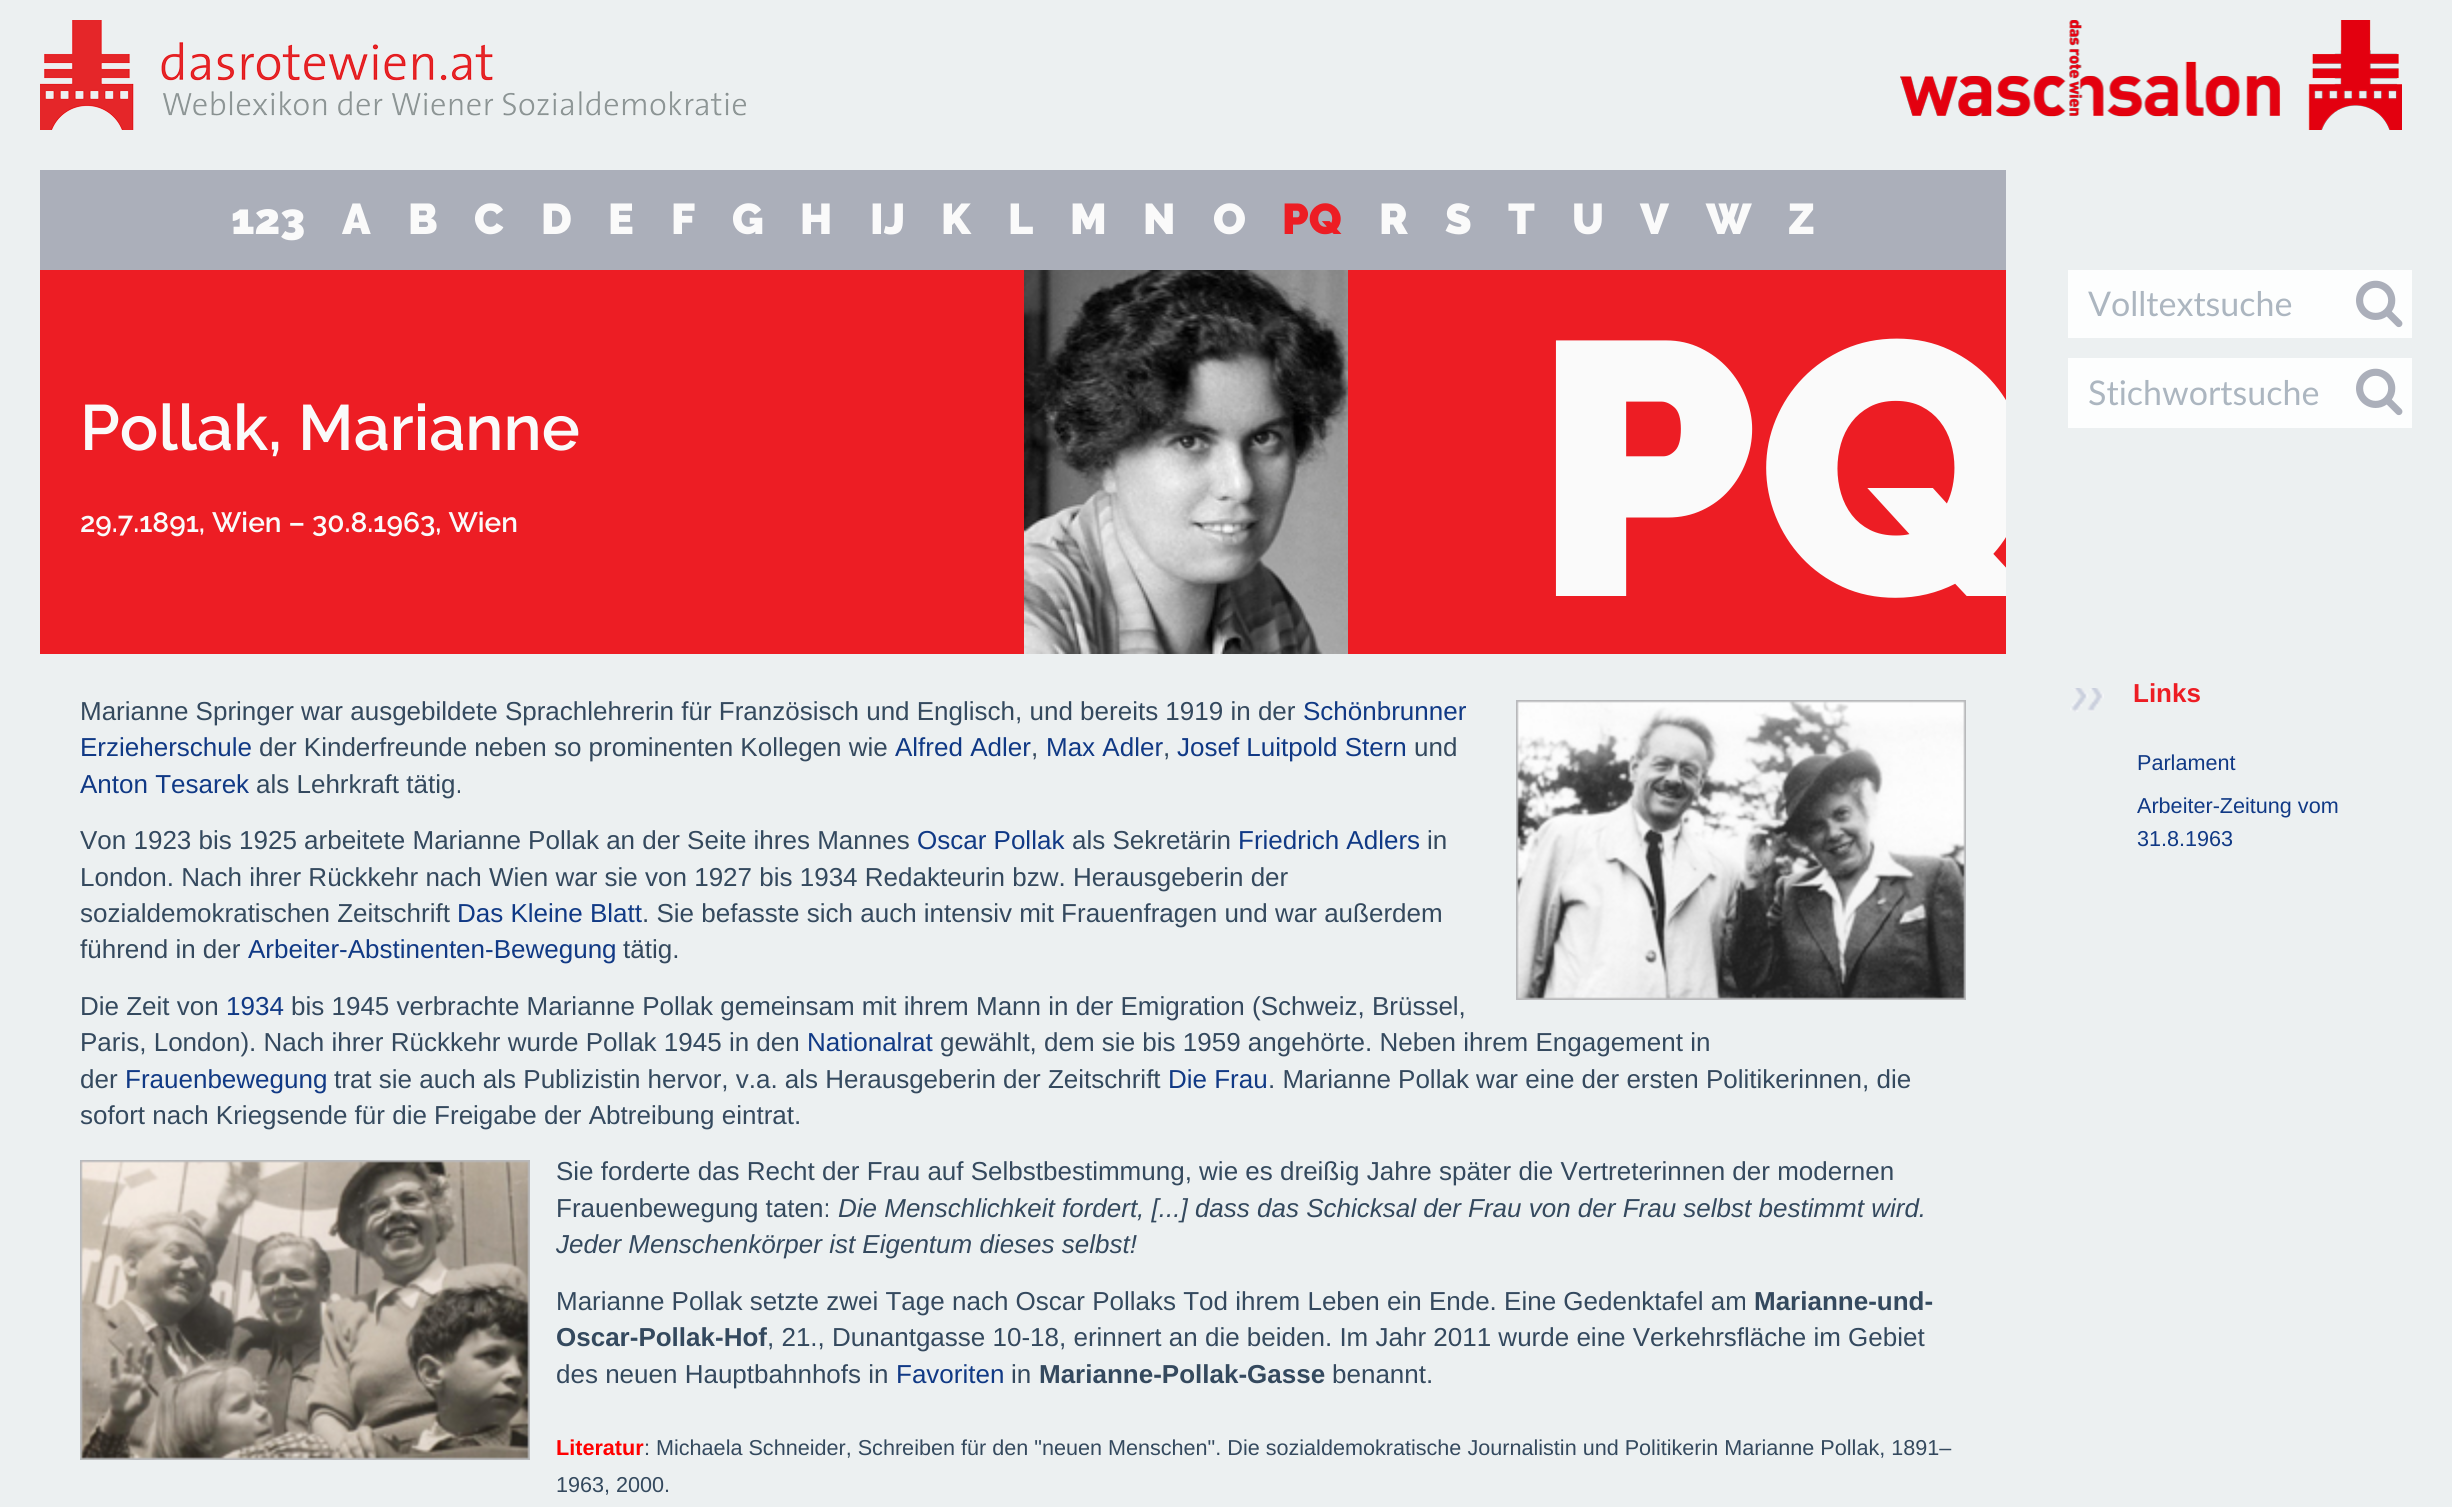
import math
import cairo


def paste(ctx, path, x, y, w, h):
	ctx.save()
	ctx.set_source_surface(cairo.ImageSurface.create_from_png(path), x, y)
	ctx.rectangle(x, y, w, h)
	ctx.fill()
	ctx.restore()

def draw(ctx):
	ctx.set_source_rgb(0.925, 0.941, 0.945)
	ctx.paint()
	paste(ctx, 'media/1.png', 40, 20, 706, 110)
	paste(ctx, 'media/2.png', 1900, 20, 502, 110)
	ctx.set_source_rgb(0.671, 0.686, 0.729)
	ctx.rectangle(40, 170, 1966, 100)
	ctx.fill()
	ctx.select_font_face('Raleway Black')
	ctx.set_font_size(43)
	ctx.set_source_rgb(0.98, 0.98, 0.98)
	for x, y, s in [
		(231, 234, '123'),
		(342, 234, 'A'),
		(408, 234, 'B'),
		(474, 234, 'C'),
		(541, 234, 'D'),
		(608, 234, 'E'),
		(671, 234, 'F'),
		(732, 234, 'G'),
		(800, 234, 'H'),
		(870, 234, 'IJ'),
		(941, 234, 'K'),
		(1008, 234, 'L'),
		(1070, 234, 'M'),
		(1143, 234, 'N'),
		(1213, 234, 'O'),
	]:
		ctx.move_to(x, y)
		ctx.show_text(s)
	ctx.set_source_rgb(0.929, 0.114, 0.141)
	ctx.move_to(1282, 234)
	ctx.show_text('PQ')
	ctx.set_source_rgb(0.98, 0.98, 0.98)
	for x, y, s in [
		(1379, 234, 'R'),
		(1445, 234, 'S'),
		(1508, 234, 'T'),
		(1572, 234, 'U'),
		(1640, 234, 'V'),
		(1706, 234, 'W'),
		(1788, 234, 'Z'),
	]:
		ctx.move_to(x, y)
		ctx.show_text(s)
	ctx.set_source_rgb(0.929, 0.114, 0.141)
	ctx.rectangle(40, 270, 1966, 384)
	ctx.fill()
	ctx.select_font_face('Raleway SemiBold')
	ctx.set_font_size(64)
	ctx.set_source_rgb(0.98, 0.98, 0.98)
	ctx.move_to(80, 450)
	ctx.show_text('Pollak, Marianne')
	ctx.set_font_size(28)
	ctx.move_to(80, 532)
	ctx.show_text('29.7.1891, Wien – 30.8.1963, Wien')
	paste(ctx, 'media/3.png', 1024, 270, 324, 384)
	ctx.save()
	ctx.rectangle(40, 270, 1966, 384)
	ctx.clip()
	ctx.select_font_face('Raleway Black')
	ctx.set_font_size(360)
	ctx.move_to(1534, 596)
	ctx.show_text('PQ')
	ctx.restore()
	ctx.set_source_rgb(0.992, 0.996, 0.996)
	ctx.rectangle(2068, 270, 344, 68)
	ctx.fill()
	ctx.select_font_face('Lato')
	ctx.set_font_size(34)
	ctx.set_source_rgb(0.675, 0.714, 0.753)
	ctx.move_to(2088, 316)
	ctx.show_text('Volltextsuche')
	paste(ctx, 'media/4.png', 2356, 280, 47, 48)
	ctx.set_source_rgb(0.992, 0.996, 0.996)
	ctx.rectangle(2068, 358, 344, 70)
	ctx.fill()
	ctx.set_source_rgb(0.675, 0.714, 0.753)
	ctx.move_to(2088, 405)
	ctx.show_text('Stichwortsuche')
	paste(ctx, 'media/4.png', 2356, 368, 47, 48)
	ctx.select_font_face('Liberation Sans')
	ctx.set_font_size(26)
	ctx.set_source_rgb(0.204, 0.286, 0.369)
	ctx.move_to(80, 720)
	ctx.show_text('Marianne Springer war ausgebildete Sprachlehrerin für Französisch und Englisch, und bereits 1919 in der')
	ctx.set_source_rgb(0.063, 0.224, 0.522)
	ctx.move_to(1303, 720)
	ctx.show_text('Schönbrunner')
	ctx.move_to(80, 756)
	ctx.show_text('Erzieherschule')
	ctx.set_source_rgb(0.204, 0.286, 0.369)
	ctx.move_to(259, 756)
	ctx.show_text('der Kinderfreunde neben so prominenten Kollegen wie')
	ctx.set_source_rgb(0.063, 0.224, 0.522)
	ctx.move_to(895, 756)
	ctx.show_text('Alfred Adler')
	ctx.set_source_rgb(0.204, 0.286, 0.369)
	ctx.move_to(1031, 756)
	ctx.show_text(',')
	ctx.set_source_rgb(0.063, 0.224, 0.522)
	ctx.move_to(1046, 756)
	ctx.show_text('Max Adler')
	ctx.set_source_rgb(0.204, 0.286, 0.369)
	ctx.move_to(1163, 756)
	ctx.show_text(',')
	ctx.set_source_rgb(0.063, 0.224, 0.522)
	ctx.move_to(1177, 756)
	ctx.show_text('Josef Luitpold Stern')
	ctx.set_source_rgb(0.204, 0.286, 0.369)
	ctx.move_to(1414, 756)
	ctx.show_text('und')
	ctx.set_source_rgb(0.063, 0.224, 0.522)
	ctx.move_to(80, 793)
	ctx.show_text('Anton Tesarek')
	ctx.set_source_rgb(0.204, 0.286, 0.369)
	ctx.move_to(256, 793)
	ctx.show_text('als Lehrkraft tätig.')
	paste(ctx, 'media/5.png', 1516, 700, 450, 300)
	ctx.move_to(80, 849)
	ctx.show_text('Von 1923 bis 1925 arbeitete Marianne Pollak an der Seite ihres Mannes')
	ctx.set_source_rgb(0.063, 0.224, 0.522)
	ctx.move_to(917, 849)
	ctx.show_text('Oscar Pollak')
	ctx.set_source_rgb(0.204, 0.286, 0.369)
	ctx.move_to(1072, 849)
	ctx.show_text('als Sekretärin')
	ctx.set_source_rgb(0.063, 0.224, 0.522)
	ctx.move_to(1238, 849)
	ctx.show_text('Friedrich Adlers')
	ctx.set_source_rgb(0.204, 0.286, 0.369)
	for x, y, s in [
		(1427, 849, 'in'),
		(80, 886, 'London. Nach ihrer Rückkehr nach Wien war sie von 1927 bis 1934 Redakteurin bzw. Herausgeberin der'),
		(80, 922, 'sozialdemokratischen Zeitschrift'),
	]:
		ctx.move_to(x, y)
		ctx.show_text(s)
	ctx.set_source_rgb(0.063, 0.224, 0.522)
	ctx.move_to(457, 922)
	ctx.show_text('Das Kleine Blatt')
	ctx.set_source_rgb(0.204, 0.286, 0.369)
	ctx.move_to(642, 922)
	ctx.show_text('. Sie befasste sich auch intensiv mit Frauenfragen und war außerdem')
	ctx.move_to(80, 958)
	ctx.show_text('führend in der')
	ctx.set_source_rgb(0.063, 0.224, 0.522)
	ctx.move_to(248, 958)
	ctx.show_text('Arbeiter-Abstinenten-Bewegung')
	ctx.set_source_rgb(0.204, 0.286, 0.369)
	ctx.move_to(623, 958)
	ctx.show_text('tätig.')
	ctx.move_to(80, 1015)
	ctx.show_text('Die Zeit von')
	ctx.set_source_rgb(0.063, 0.224, 0.522)
	ctx.move_to(226, 1015)
	ctx.show_text('1934')
	ctx.set_source_rgb(0.204, 0.286, 0.369)
	ctx.move_to(291, 1015)
	ctx.show_text('bis 1945 verbrachte Marianne Pollak gemeinsam mit ihrem Mann in der Emigration (Schweiz, Brüssel,')
	ctx.move_to(80, 1051)
	ctx.show_text('Paris, London). Nach ihrer Rückkehr wurde Pollak 1945 in den')
	ctx.set_source_rgb(0.063, 0.224, 0.522)
	ctx.move_to(807, 1051)
	ctx.show_text('Nationalrat')
	ctx.set_source_rgb(0.204, 0.286, 0.369)
	ctx.move_to(940, 1051)
	ctx.show_text('gewählt, dem sie bis 1959 angehörte. Neben ihrem Engagement in')
	ctx.move_to(80, 1088)
	ctx.show_text('der')
	ctx.set_source_rgb(0.063, 0.224, 0.522)
	ctx.move_to(125, 1088)
	ctx.show_text('Frauenbewegung')
	ctx.set_source_rgb(0.204, 0.286, 0.369)
	ctx.move_to(334, 1088)
	ctx.show_text('trat sie auch als Publizistin hervor, v.a. als Herausgeberin der Zeitschrift')
	ctx.set_source_rgb(0.063, 0.224, 0.522)
	ctx.move_to(1168, 1088)
	ctx.show_text('Die Frau')
	ctx.set_source_rgb(0.204, 0.286, 0.369)
	ctx.move_to(1268, 1088)
	ctx.show_text('. Marianne Pollak war eine der ersten Politikerinnen, die')
	ctx.move_to(80, 1124)
	ctx.show_text('sofort nach Kriegsende für die Freigabe der Abtreibung eintrat.')
	paste(ctx, 'media/6.png', 80, 1160, 450, 300)
	ctx.move_to(556, 1180)
	ctx.show_text('Sie forderte das Recht der Frau auf Selbstbestimmung, wie es dreißig Jahre später die Vertreterinnen der modernen')
	ctx.move_to(556, 1217)
	ctx.show_text('Frauenbewegung taten:')
	ctx.select_font_face('Liberation Sans', cairo.FONT_SLANT_ITALIC)
	ctx.move_to(838, 1217)
	ctx.show_text('Die Menschlichkeit fordert, [...] dass das Schicksal der Frau von der Frau selbst bestimmt wird.')
	ctx.move_to(556, 1253)
	ctx.show_text('Jeder Menschenkörper ist Eigentum dieses selbst!')
	ctx.select_font_face('Liberation Sans')
	ctx.move_to(556, 1310)
	ctx.show_text('Marianne Pollak setzte zwei Tage nach Oscar Pollaks Tod ihrem Leben ein Ende. Eine Gedenktafel am')
	ctx.select_font_face('Liberation Sans', cairo.FONT_SLANT_NORMAL, cairo.FONT_WEIGHT_BOLD)
	ctx.move_to(1754, 1310)
	ctx.show_text('Marianne-und-')
	ctx.move_to(556, 1346)
	ctx.show_text('Oscar-Pollak-Hof')
	ctx.select_font_face('Liberation Sans')
	ctx.move_to(767, 1346)
	ctx.show_text(', 21., Dunantgasse 10-18, erinnert an die beiden. Im Jahr 2011 wurde eine Verkehrsfläche im Gebiet')
	ctx.move_to(556, 1383)
	ctx.show_text('des neuen Hauptbahnhofs in')
	ctx.set_source_rgb(0.063, 0.224, 0.522)
	ctx.move_to(896, 1383)
	ctx.show_text('Favoriten')
	ctx.set_source_rgb(0.204, 0.286, 0.369)
	ctx.move_to(1011, 1383)
	ctx.show_text('in')
	ctx.select_font_face('Liberation Sans', cairo.FONT_SLANT_NORMAL, cairo.FONT_WEIGHT_BOLD)
	ctx.move_to(1039, 1383)
	ctx.show_text('Marianne-Pollak-Gasse')
	ctx.select_font_face('Liberation Sans')
	ctx.move_to(1332, 1383)
	ctx.show_text('benannt.')
	ctx.select_font_face('Liberation Sans', cairo.FONT_SLANT_NORMAL, cairo.FONT_WEIGHT_BOLD)
	ctx.set_font_size(21.6)
	ctx.set_source_rgb(1, 0, 0)
	ctx.move_to(556, 1455)
	ctx.show_text('Literatur')
	ctx.select_font_face('Liberation Sans')
	ctx.set_source_rgb(0.204, 0.286, 0.369)
	ctx.move_to(644, 1455)
	ctx.show_text(': Michaela Schneider, Schreiben für den "neuen Menschen". Die sozialdemokratische Journalistin und Politikerin Marianne Pollak, 1891–')
	ctx.move_to(556, 1492)
	ctx.show_text('1963, 2000.')
	paste(ctx, 'media/7.png', 2070, 688, 34, 24)
	ctx.select_font_face('Liberation Sans', cairo.FONT_SLANT_NORMAL, cairo.FONT_WEIGHT_BOLD)
	ctx.set_font_size(26)
	ctx.set_source_rgb(0.929, 0.114, 0.141)
	ctx.move_to(2133, 702)
	ctx.show_text('Links')
	ctx.select_font_face('Liberation Sans')
	ctx.set_font_size(21.6)
	ctx.set_source_rgb(0.063, 0.224, 0.522)
	for x, y, s in [
		(2137, 770, 'Parlament'),
		(2137, 813, 'Arbeiter-Zeitung vom'),
		(2137, 846, '31.8.1963'),
	]:
		ctx.move_to(x, y)
		ctx.show_text(s)


surface = cairo.ImageSurface(cairo.FORMAT_RGB24, 2452, 1507)
ctx = cairo.Context(surface)
options = cairo.FontOptions()
options.set_hint_metrics(cairo.HINT_METRICS_OFF)
options.set_hint_style(cairo.HINT_STYLE_NONE)
ctx.set_font_options(options)
ctx.set_miter_limit(4)
draw(ctx)
surface.write_to_png('image.png')
